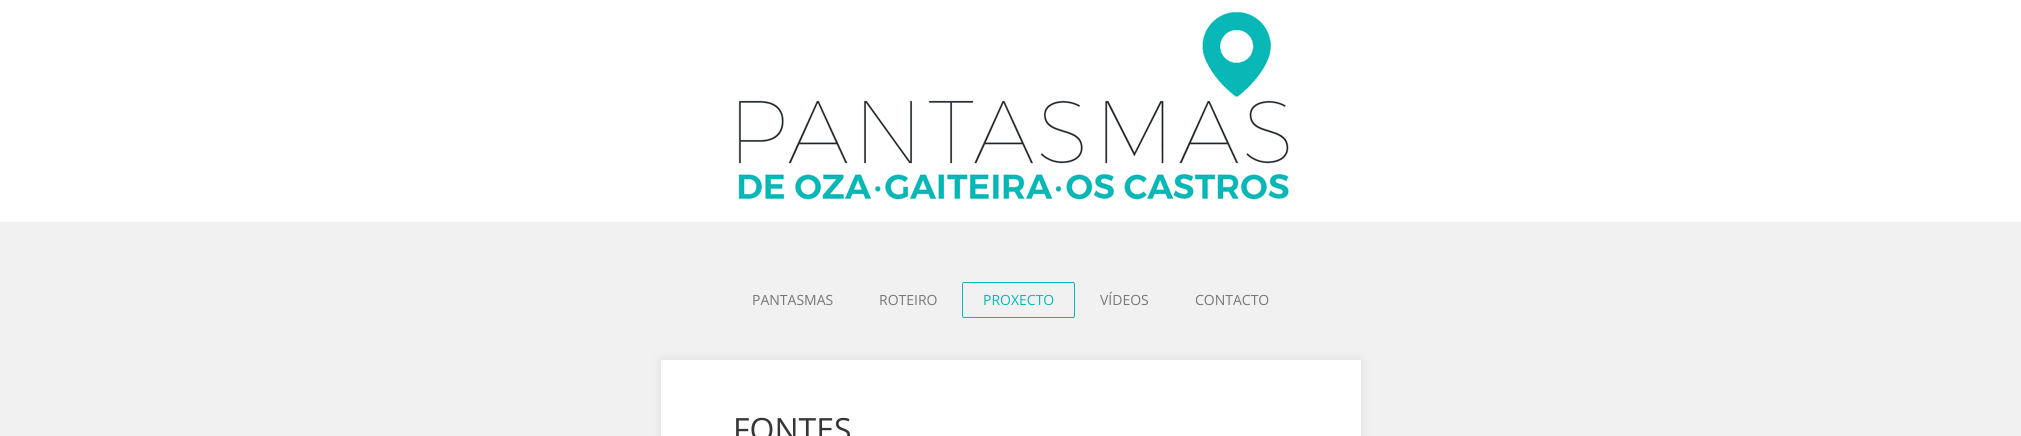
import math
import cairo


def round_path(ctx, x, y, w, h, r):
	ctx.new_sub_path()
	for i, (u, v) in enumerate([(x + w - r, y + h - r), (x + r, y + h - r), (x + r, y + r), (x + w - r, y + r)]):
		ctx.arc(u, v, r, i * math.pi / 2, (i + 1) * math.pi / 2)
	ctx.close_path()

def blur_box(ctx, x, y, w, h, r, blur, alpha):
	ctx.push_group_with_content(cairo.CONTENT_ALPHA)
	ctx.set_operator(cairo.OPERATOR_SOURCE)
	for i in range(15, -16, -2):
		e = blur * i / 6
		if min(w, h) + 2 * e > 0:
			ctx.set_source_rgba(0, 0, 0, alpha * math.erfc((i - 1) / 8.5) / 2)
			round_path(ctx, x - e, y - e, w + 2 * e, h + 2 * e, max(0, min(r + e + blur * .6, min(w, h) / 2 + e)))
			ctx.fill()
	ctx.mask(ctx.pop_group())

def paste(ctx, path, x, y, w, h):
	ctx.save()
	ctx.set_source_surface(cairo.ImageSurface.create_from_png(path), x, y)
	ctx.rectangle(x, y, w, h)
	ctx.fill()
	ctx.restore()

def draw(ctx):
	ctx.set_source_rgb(1, 1, 1)
	ctx.paint()
	paste(ctx, 'media/1.png', 738, 12, 551, 188)
	ctx.set_source_rgb(0.945, 0.945, 0.945)
	ctx.rectangle(0, 222, 2021, 214)
	ctx.fill()
	ctx.select_font_face('Open Sans')
	ctx.set_font_size(14)
	ctx.set_source_rgb(0.467, 0.467, 0.467)
	ctx.move_to(752, 305)
	ctx.show_text('PANTASMAS')
	ctx.move_to(879, 305)
	ctx.show_text('ROTEIRO')
	round_path(ctx, 962.5, 282.5, 112, 35, 1.5)
	ctx.set_source_rgb(0.027, 0.722, 0.714)
	ctx.set_line_width(1)
	ctx.stroke()
	ctx.move_to(983, 305)
	ctx.show_text('PROXECTO')
	ctx.set_source_rgb(0.467, 0.467, 0.467)
	ctx.move_to(1100, 305)
	ctx.show_text('VÍDEOS')
	ctx.move_to(1195, 305)
	ctx.show_text('CONTACTO')
	ctx.set_source_rgb(0, 0, 0)
	blur_box(ctx, 661, 360, 700, 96, 0, 6.5, 0.07)
	ctx.set_source_rgb(1, 1, 1)
	ctx.rectangle(661, 360, 700, 76)
	ctx.fill()
	ctx.set_font_size(32)
	ctx.set_source_rgb(0.212, 0.212, 0.212)
	ctx.move_to(733, 441)
	ctx.show_text('FONTES')


surface = cairo.ImageSurface(cairo.FORMAT_RGB24, 2021, 436)
ctx = cairo.Context(surface)
options = cairo.FontOptions()
options.set_hint_metrics(cairo.HINT_METRICS_OFF)
options.set_hint_style(cairo.HINT_STYLE_NONE)
ctx.set_font_options(options)
ctx.set_miter_limit(4)
draw(ctx)
surface.write_to_png('image.png')
